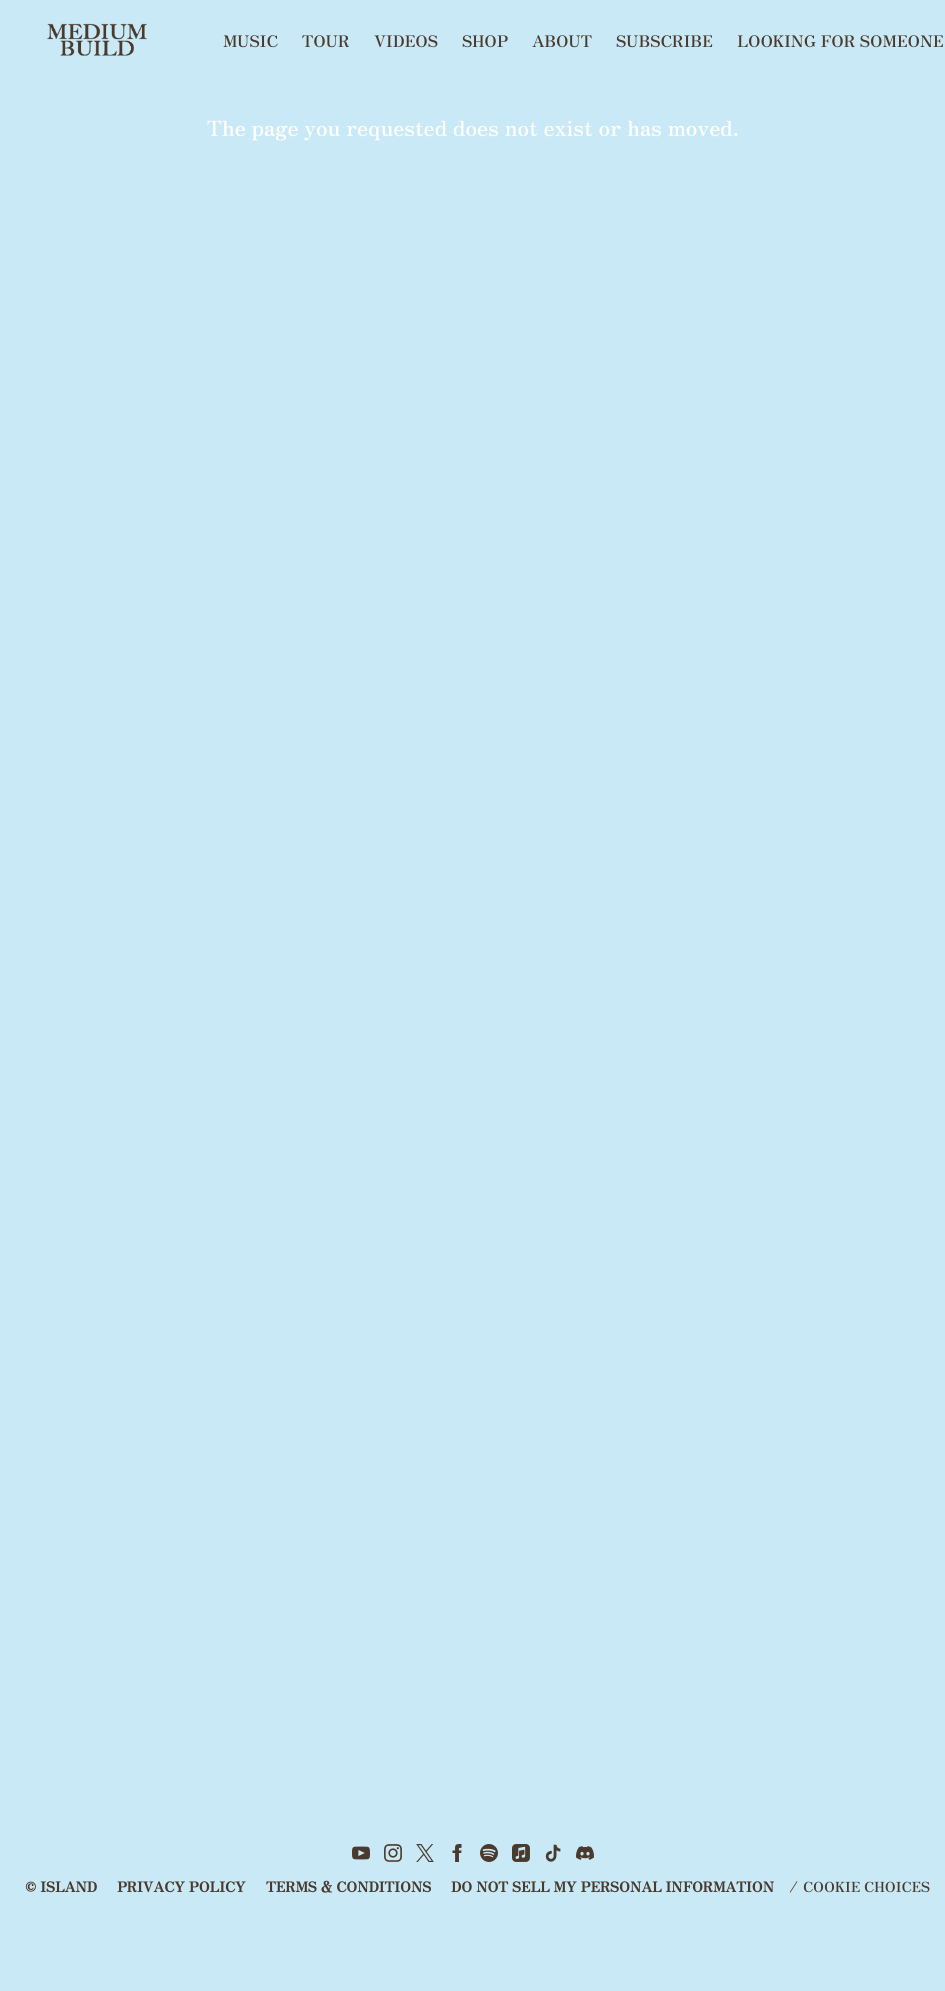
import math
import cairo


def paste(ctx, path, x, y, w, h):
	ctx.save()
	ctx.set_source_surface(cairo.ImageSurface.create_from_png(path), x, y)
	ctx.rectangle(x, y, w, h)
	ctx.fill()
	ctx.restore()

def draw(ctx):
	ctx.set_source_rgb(0.792, 0.914, 0.961)
	ctx.paint()
	paste(ctx, 'media/1.png', 47, 23, 100, 33)
	ctx.select_font_face('Zen Antique')
	ctx.set_font_size(16)
	ctx.set_source_rgb(0.286, 0.227, 0.176)
	for x, y, s in [
		(223, 47, 'MUSIC'),
		(302, 47, 'TOUR'),
		(374, 47, 'VIDEOS'),
		(462, 47, 'SHOP'),
		(532, 47, 'ABOUT'),
		(616, 47, 'SUBSCRIBE'),
		(737, 47, 'LOOKING FOR SOMEONE'),
	]:
		ctx.move_to(x, y)
		ctx.show_text(s)
	ctx.set_font_size(21)
	ctx.set_source_rgb(1, 1, 1)
	ctx.move_to(207, 136)
	ctx.show_text('The page you requested does not exist or has moved.')
	paste(ctx, 'media/2.png', 352, 1846, 18, 14)
	paste(ctx, 'media/3.png', 384, 1844, 18, 18)
	paste(ctx, 'media/4.png', 416, 1844, 18, 18)
	paste(ctx, 'media/5.png', 452, 1844, 10, 18)
	paste(ctx, 'media/6.png', 480, 1844, 18, 18)
	paste(ctx, 'media/7.png', 512, 1844, 18, 18)
	paste(ctx, 'media/8.png', 545, 1844, 16, 18)
	paste(ctx, 'media/9.png', 576, 1846, 18, 14)
	ctx.select_font_face('Zen Antique', cairo.FONT_SLANT_NORMAL, cairo.FONT_WEIGHT_BOLD)
	ctx.set_font_size(14)
	ctx.set_source_rgb(0.286, 0.227, 0.176)
	for x, y, s in [
		(25, 1892, '© ISLAND'),
		(117, 1892, 'PRIVACY POLICY'),
		(266, 1892, 'TERMS & CONDITIONS'),
		(451, 1892, 'DO NOT SELL MY PERSONAL INFORMATION'),
	]:
		ctx.move_to(x, y)
		ctx.show_text(s)
	ctx.select_font_face('Zen Antique')
	ctx.move_to(789, 1892)
	ctx.show_text('/')
	ctx.move_to(803, 1892)
	ctx.show_text('COOKIE CHOICES')


surface = cairo.ImageSurface(cairo.FORMAT_RGB24, 945, 1991)
ctx = cairo.Context(surface)
options = cairo.FontOptions()
options.set_hint_metrics(cairo.HINT_METRICS_OFF)
options.set_hint_style(cairo.HINT_STYLE_NONE)
ctx.set_font_options(options)
ctx.set_miter_limit(4)
draw(ctx)
surface.write_to_png('image.png')
